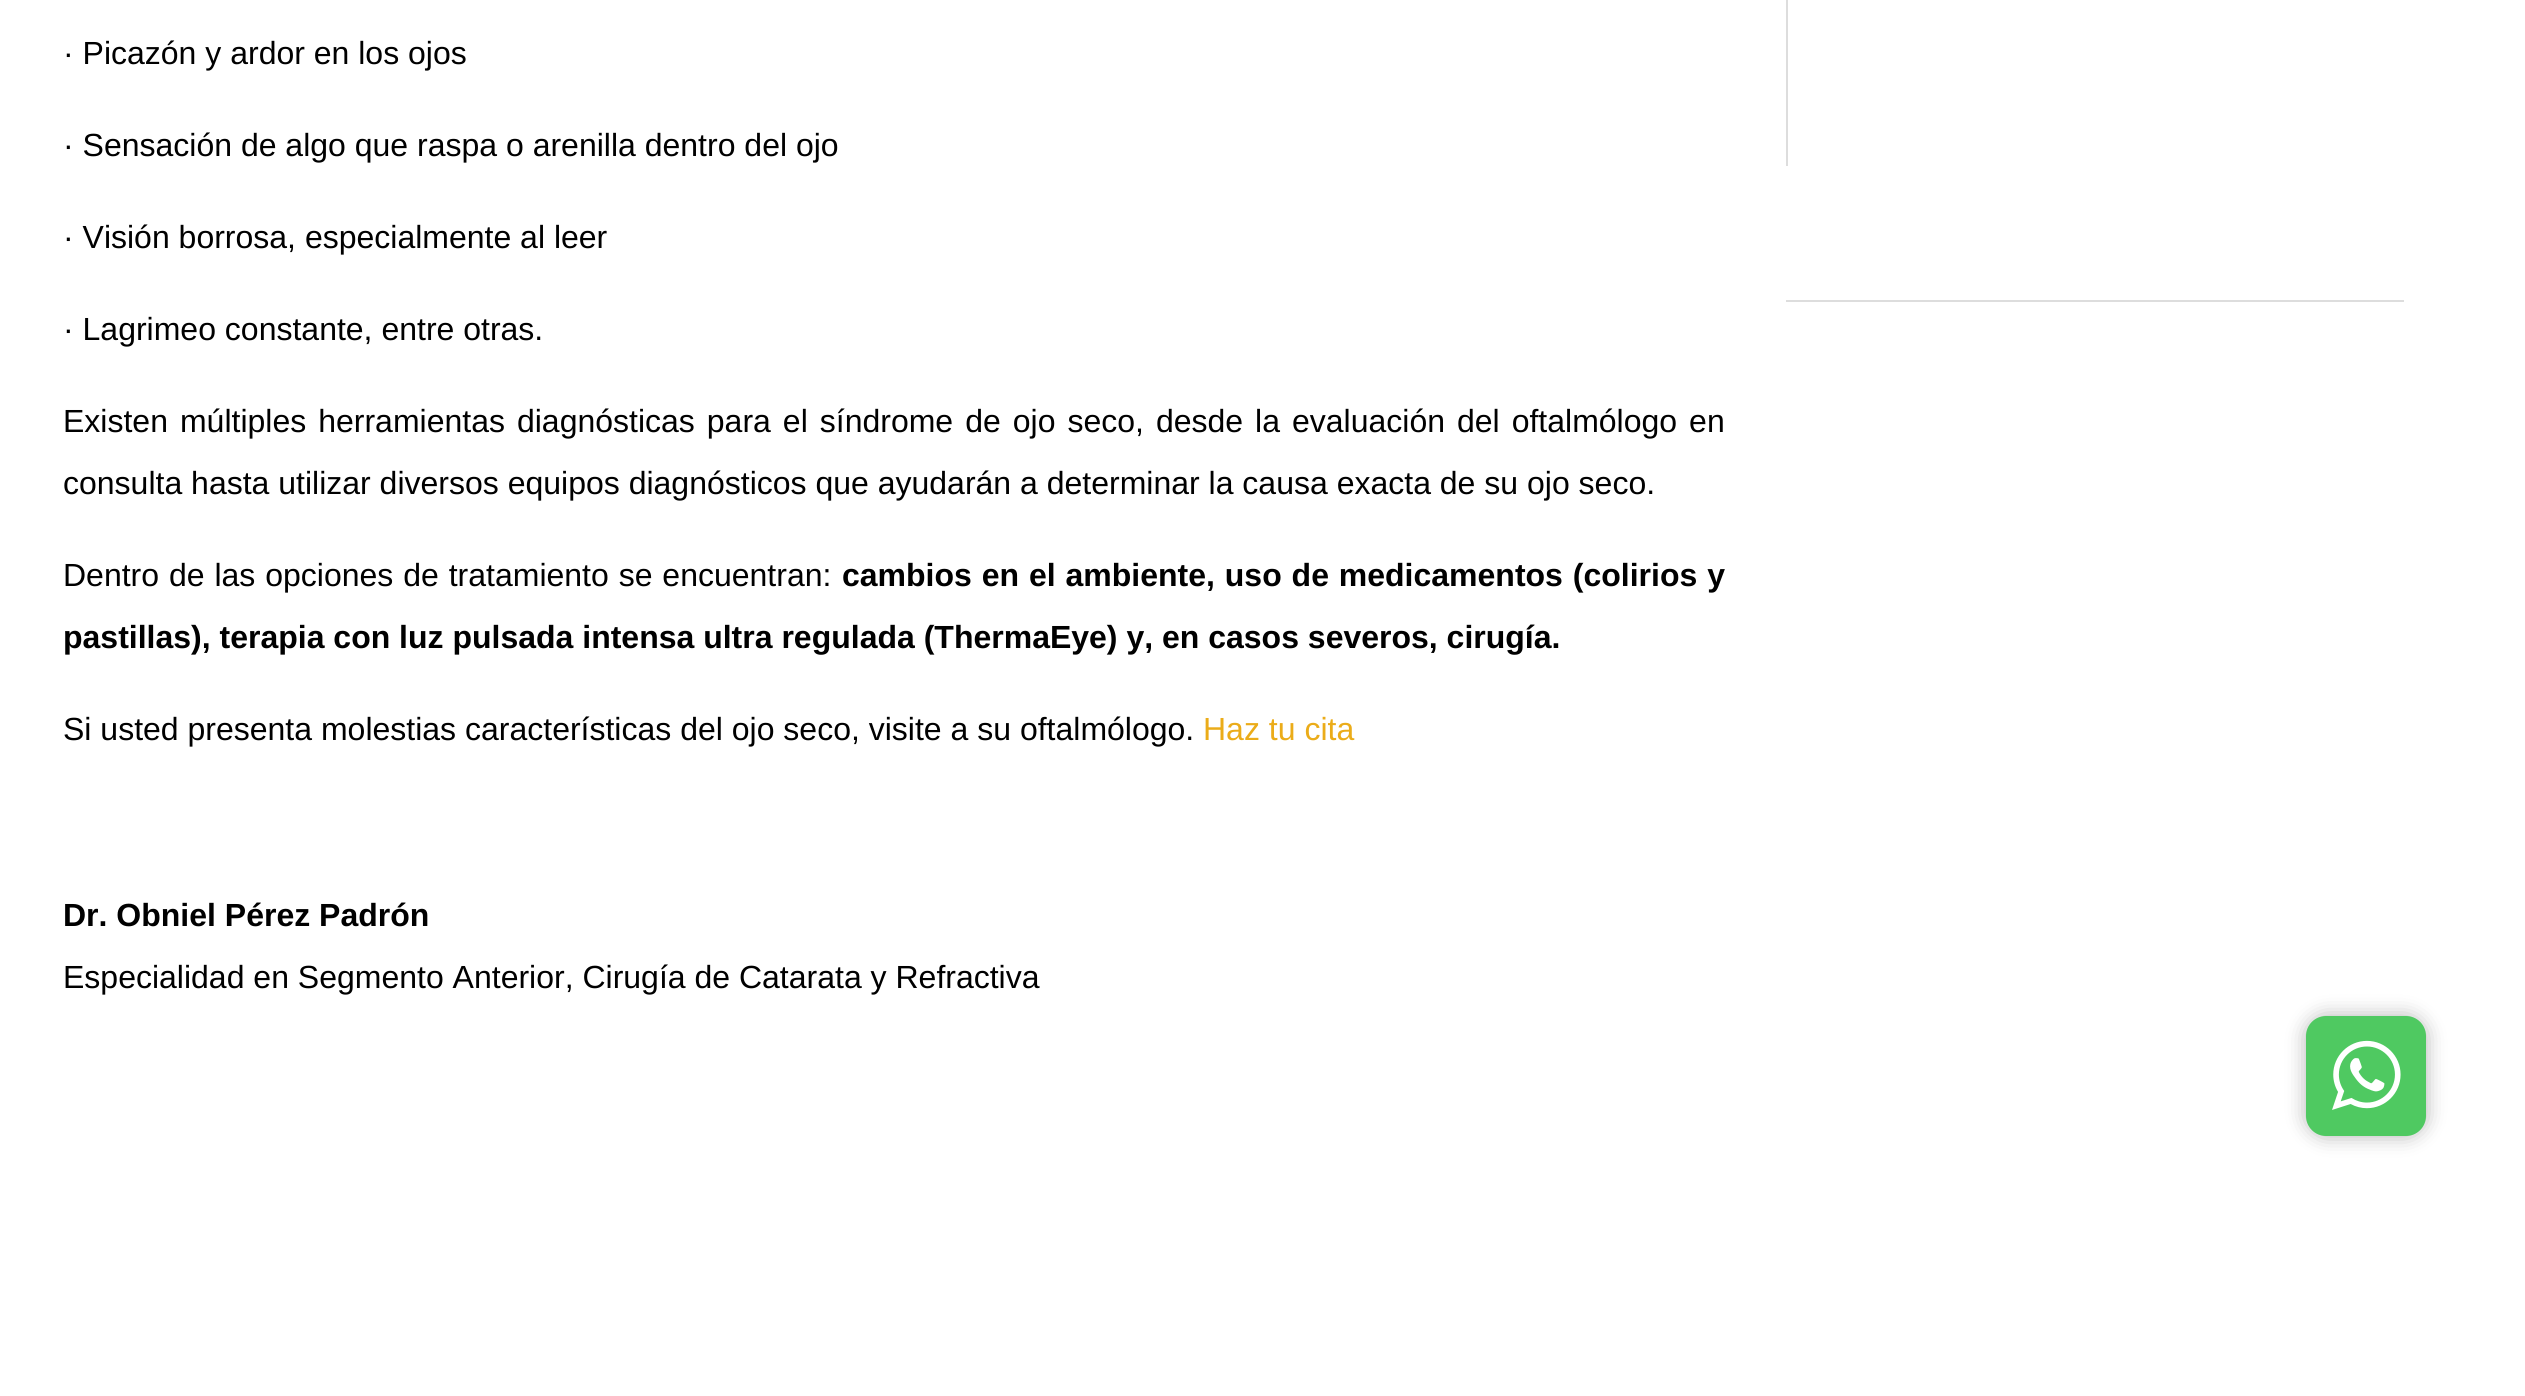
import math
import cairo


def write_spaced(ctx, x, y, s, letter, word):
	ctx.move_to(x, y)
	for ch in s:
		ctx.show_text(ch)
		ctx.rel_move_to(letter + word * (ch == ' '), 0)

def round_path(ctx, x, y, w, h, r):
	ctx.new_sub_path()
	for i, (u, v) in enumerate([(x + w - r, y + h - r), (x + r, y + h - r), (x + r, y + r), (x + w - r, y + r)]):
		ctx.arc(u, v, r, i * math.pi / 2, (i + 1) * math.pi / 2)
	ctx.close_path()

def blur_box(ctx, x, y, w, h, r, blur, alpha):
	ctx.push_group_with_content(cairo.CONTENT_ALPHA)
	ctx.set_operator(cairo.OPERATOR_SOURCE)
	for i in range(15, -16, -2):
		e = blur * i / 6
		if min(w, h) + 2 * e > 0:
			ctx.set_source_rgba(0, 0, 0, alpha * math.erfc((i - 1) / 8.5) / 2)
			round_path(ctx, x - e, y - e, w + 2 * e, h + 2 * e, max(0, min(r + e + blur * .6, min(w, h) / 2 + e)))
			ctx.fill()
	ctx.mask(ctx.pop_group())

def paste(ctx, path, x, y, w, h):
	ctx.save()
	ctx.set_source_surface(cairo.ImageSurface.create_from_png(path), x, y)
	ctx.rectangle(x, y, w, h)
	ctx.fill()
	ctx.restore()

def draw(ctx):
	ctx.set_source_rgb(1, 1, 1)
	ctx.paint()
	ctx.select_font_face('Liberation Sans')
	ctx.set_font_size(32)
	ctx.set_source_rgb(0, 0, 0)
	for x, y, s in [
		(63, 64, '· Picazón y ardor en los ojos'),
		(63, 156, '· Sensación de algo que raspa o arenilla dentro del ojo'),
		(63, 248, '· Visión borrosa, especialmente al leer'),
		(63, 340, '· Lagrimeo constante, entre otras.'),
	]:
		ctx.move_to(x, y)
		ctx.show_text(s)
	write_spaced(ctx, 63, 432, 'Existen múltiples herramientas diagnósticas para el síndrome de ojo seco, desde la evaluación del oftalmólogo en', 0, 3.1)
	ctx.move_to(63, 494)
	ctx.show_text('consulta hasta utilizar diversos equipos diagnósticos que ayudarán a determinar la causa exacta de su ojo seco.')
	write_spaced(ctx, 63, 586, 'Dentro de las opciones de tratamiento se encuentran:', 0, 1)
	ctx.select_font_face('Liberation Sans', cairo.FONT_SLANT_NORMAL, cairo.FONT_WEIGHT_BOLD)
	write_spaced(ctx, 842, 586, 'cambios en el ambiente, uso de medicamentos (colirios y', 0, 1)
	ctx.move_to(63, 648)
	ctx.show_text('pastillas), terapia con luz pulsada intensa ultra regulada (ThermaEye) y, en casos severos, cirugía.')
	ctx.select_font_face('Liberation Sans')
	ctx.move_to(63, 740)
	ctx.show_text('Si usted presenta molestias características del ojo seco, visite a su oftalmólogo.')
	ctx.set_source_rgb(0.918, 0.675, 0.098)
	ctx.move_to(1203, 740)
	ctx.show_text('Haz tu cita')
	ctx.select_font_face('Liberation Sans', cairo.FONT_SLANT_NORMAL, cairo.FONT_WEIGHT_BOLD)
	ctx.set_source_rgb(0, 0, 0)
	ctx.move_to(63, 926)
	ctx.show_text('Dr. Obniel Pérez Padrón')
	ctx.select_font_face('Liberation Sans')
	ctx.move_to(63, 988)
	ctx.show_text('Especialidad en Segmento Anterior, Cirugía de Catarata y Refractiva')
	ctx.set_source_rgb(0.867, 0.867, 0.867)
	ctx.rectangle(1786, 0, 2, 166)
	ctx.fill()
	ctx.rectangle(1786, 300, 618, 2)
	ctx.fill()
	ctx.set_source_rgb(0, 0, 0)
	blur_box(ctx, 2306, 1016, 120, 120, 20, 10, 0.3)
	ctx.set_source_rgb(0.31, 0.788, 0.38)
	round_path(ctx, 2306, 1016, 120, 120, 20)
	ctx.fill()
	paste(ctx, 'media/1.png', 2332, 1040, 69, 70)


surface = cairo.ImageSurface(cairo.FORMAT_RGB24, 2525, 1396)
ctx = cairo.Context(surface)
options = cairo.FontOptions()
options.set_hint_metrics(cairo.HINT_METRICS_OFF)
options.set_hint_style(cairo.HINT_STYLE_NONE)
ctx.set_font_options(options)
ctx.set_miter_limit(4)
draw(ctx)
surface.write_to_png('image.png')
